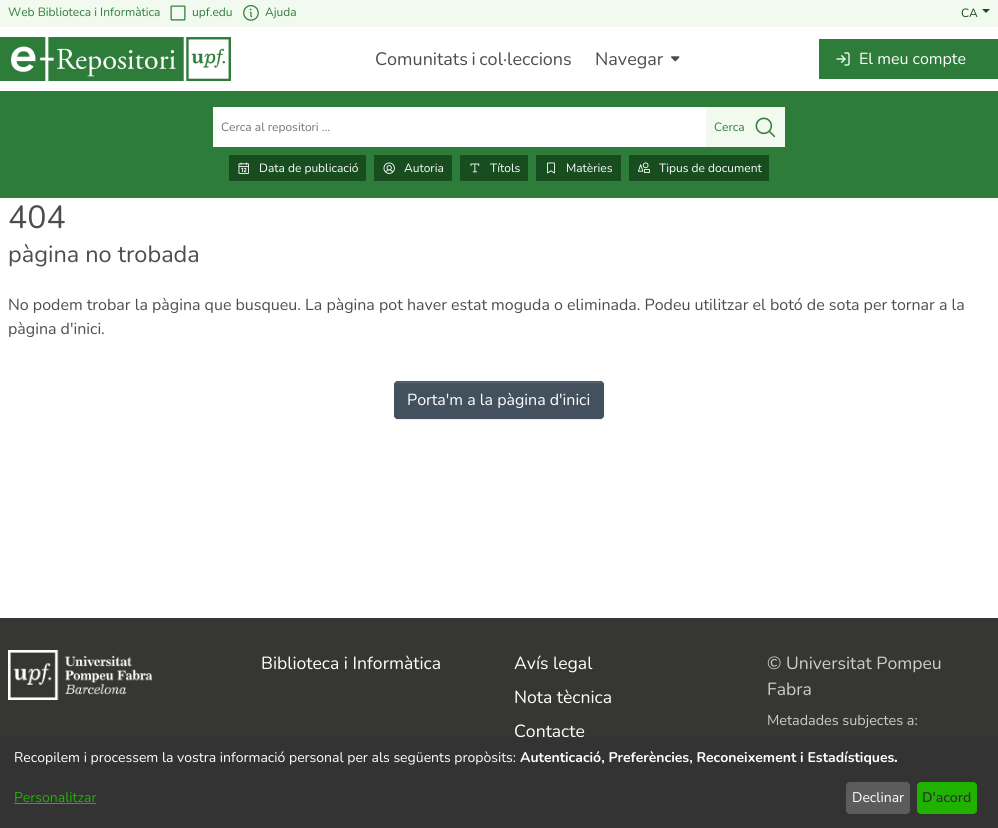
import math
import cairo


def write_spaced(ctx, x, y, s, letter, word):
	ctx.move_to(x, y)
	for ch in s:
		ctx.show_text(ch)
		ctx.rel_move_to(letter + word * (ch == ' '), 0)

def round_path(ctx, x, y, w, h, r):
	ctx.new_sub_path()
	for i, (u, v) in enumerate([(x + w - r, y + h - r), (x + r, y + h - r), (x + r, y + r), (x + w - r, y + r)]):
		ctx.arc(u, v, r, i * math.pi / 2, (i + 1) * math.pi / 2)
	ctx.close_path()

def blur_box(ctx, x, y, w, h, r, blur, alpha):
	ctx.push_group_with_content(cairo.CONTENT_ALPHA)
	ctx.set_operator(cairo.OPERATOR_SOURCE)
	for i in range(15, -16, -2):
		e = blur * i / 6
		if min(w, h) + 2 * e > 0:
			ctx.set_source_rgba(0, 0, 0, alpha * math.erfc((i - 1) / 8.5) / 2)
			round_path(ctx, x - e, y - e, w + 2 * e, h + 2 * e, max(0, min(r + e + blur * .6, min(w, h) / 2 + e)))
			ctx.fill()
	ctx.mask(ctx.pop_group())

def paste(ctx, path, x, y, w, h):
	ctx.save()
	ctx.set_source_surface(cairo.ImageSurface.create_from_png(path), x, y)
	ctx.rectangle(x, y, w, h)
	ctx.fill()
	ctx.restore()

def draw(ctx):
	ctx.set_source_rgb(1, 1, 1)
	ctx.paint()
	ctx.set_source_rgb(0.949, 0.976, 0.937)
	ctx.rectangle(0, 0, 998, 27)
	ctx.fill()
	ctx.select_font_face('Nunito')
	ctx.set_font_size(12)
	ctx.set_source_rgb(0.18, 0.486, 0.227)
	ctx.move_to(8, 16)
	ctx.show_text('Web Biblioteca i Informàtica')
	paste(ctx, 'media/1.png', 170, 5, 16, 16)
	ctx.move_to(192, 16)
	ctx.show_text('upf.edu')
	paste(ctx, 'media/2.png', 243, 5, 16, 16)
	ctx.move_to(265, 16)
	ctx.show_text('Ajuda')
	ctx.set_source_rgb(0.09, 0.302, 0.122)
	ctx.move_to(961, 17)
	ctx.show_text('CA')
	ctx.new_path()
	ctx.move_to(982, 9)
	ctx.line_to(990, 9)
	ctx.line_to(986, 13)
	ctx.close_path()
	ctx.fill()
	paste(ctx, 'media/3.png', 0, 37, 231, 44)
	ctx.set_font_size(18)
	ctx.set_source_rgb(0.302, 0.302, 0.302)
	write_spaced(ctx, 375, 65, 'Comunitats i col·leccions', 0, -1)
	ctx.move_to(595, 65)
	ctx.show_text('Navegar')
	paste(ctx, 'media/4.png', 671, 56, 9, 6)
	ctx.set_source_rgb(0.18, 0.486, 0.227)
	ctx.rectangle(819, 39, 179, 40)
	ctx.fill()
	paste(ctx, 'media/5.png', 836, 52, 14, 14)
	ctx.set_font_size(16)
	ctx.set_source_rgb(1, 1, 1)
	ctx.move_to(859, 64)
	ctx.show_text('El meu compte')
	ctx.set_source_rgb(0.18, 0.486, 0.227)
	ctx.rectangle(0, 91, 998, 107)
	ctx.fill()
	ctx.set_source_rgb(1, 1, 1)
	ctx.rectangle(213, 107, 493, 40)
	ctx.fill()
	ctx.set_font_size(12)
	ctx.set_source_rgb(0.459, 0.459, 0.459)
	ctx.move_to(221, 131)
	ctx.show_text('Cerca al repositori ...')
	ctx.set_source_rgb(0.949, 0.976, 0.937)
	ctx.rectangle(706, 107, 79, 40)
	ctx.fill()
	ctx.set_source_rgb(0.18, 0.486, 0.227)
	ctx.move_to(714, 131)
	ctx.show_text('Cerca')
	paste(ctx, 'media/6.png', 755, 117, 21, 21)
	ctx.set_source_rgb(0.09, 0.302, 0.122)
	ctx.rectangle(229, 155, 137, 26)
	ctx.fill()
	paste(ctx, 'media/7.png', 238, 162, 11, 12)
	ctx.set_source_rgb(1, 1, 1)
	ctx.move_to(259, 172)
	ctx.show_text('Data de publicació')
	ctx.set_source_rgb(0.09, 0.302, 0.122)
	ctx.rectangle(374, 155, 78, 26)
	ctx.fill()
	paste(ctx, 'media/8.png', 383, 162, 12, 12)
	ctx.set_source_rgb(1, 1, 1)
	ctx.move_to(404, 172)
	ctx.show_text('Autoria')
	ctx.set_source_rgb(0.09, 0.302, 0.122)
	ctx.rectangle(460, 155, 68, 26)
	ctx.fill()
	paste(ctx, 'media/9.png', 470, 163, 10, 10)
	ctx.set_source_rgb(1, 1, 1)
	ctx.move_to(490, 172)
	ctx.show_text('Títols')
	ctx.set_source_rgb(0.09, 0.302, 0.122)
	ctx.rectangle(536, 155, 85, 26)
	ctx.fill()
	paste(ctx, 'media/10.png', 547, 162, 8, 12)
	ctx.set_source_rgb(1, 1, 1)
	ctx.move_to(566, 172)
	ctx.show_text('Matèries')
	ctx.set_source_rgb(0.09, 0.302, 0.122)
	ctx.rectangle(629, 155, 140, 26)
	ctx.fill()
	paste(ctx, 'media/11.png', 638, 162, 12, 11)
	ctx.set_source_rgb(1, 1, 1)
	ctx.move_to(659, 172)
	ctx.show_text('Tipus de document')
	ctx.set_font_size(32)
	ctx.set_source_rgb(0.302, 0.302, 0.302)
	ctx.move_to(8, 228)
	ctx.show_text('404')
	ctx.set_font_size(23.5)
	ctx.move_to(8, 262)
	ctx.show_text('pàgina no trobada')
	ctx.set_font_size(16)
	ctx.move_to(8, 310)
	ctx.show_text('No podem trobar la pàgina que busqueu. La pàgina pot haver estat moguda o eliminada. Podeu utilitzar el botó de sota per tornar a la')
	ctx.move_to(8, 334)
	ctx.show_text('pàgina d\'inici.')
	ctx.set_source_rgb(0, 0, 0)
	blur_box(ctx, 394, 382, 210, 38, 4, 0.5, 0.07)
	ctx.set_source_rgb(0.263, 0.318, 0.373)
	round_path(ctx, 394, 381, 210, 38, 4)
	ctx.fill()
	ctx.set_source_rgb(0.373, 0.42, 0.467)
	ctx.new_path()
	ctx.move_to(398, 383)
	ctx.line_to(600, 383)
	ctx.curve_to(602, 383, 603, 384, 603, 386)
	ctx.curve_to(603, 384, 602, 382, 600, 382)
	ctx.line_to(397, 382)
	ctx.curve_to(395, 383, 395, 384, 395, 386)
	ctx.curve_to(395, 384, 396, 383, 398, 383)
	ctx.close_path()
	ctx.fill()
	round_path(ctx, 394.5, 381.5, 209, 37, 3.5)
	ctx.set_source_rgb(0.263, 0.318, 0.373)
	ctx.set_line_width(1)
	ctx.stroke()
	ctx.set_source_rgb(1, 1, 1)
	ctx.move_to(407, 405)
	ctx.show_text('Porta\'m a la pàgina d\'inici')
	ctx.set_source_rgb(0.212, 0.216, 0.2)
	ctx.rectangle(0, 618, 998, 119)
	ctx.fill()
	paste(ctx, 'media/12.png', 8, 650, 144, 50)
	ctx.set_font_size(17.6)
	ctx.set_source_rgb(1, 1, 1)
	for x, y, s in [
		(261, 669, 'Biblioteca i Informàtica'),
		(514, 669, 'Avís legal'),
		(514, 703, 'Nota tècnica'),
		(514, 737, 'Contacte'),
	]:
		ctx.move_to(x, y)
		ctx.show_text(s)
	ctx.set_source_rgb(0.8, 0.8, 0.8)
	ctx.move_to(767, 669)
	ctx.show_text('© Universitat Pompeu')
	ctx.move_to(767, 695)
	ctx.show_text('Fabra')
	ctx.set_font_size(14.4)
	ctx.move_to(767, 725)
	ctx.show_text('Metadades subjectes a:')
	ctx.set_source_rgb(0.2, 0.2, 0.2)
	ctx.rectangle(0, 737, 998, 91)
	ctx.fill()
	ctx.set_font_size(14)
	ctx.set_source_rgb(1, 1, 1)
	ctx.move_to(14, 762)
	ctx.show_text('Recopilem i processem la vostra informació personal per als següents propòsits:')
	ctx.select_font_face('Nunito', cairo.FONT_SLANT_NORMAL, cairo.FONT_WEIGHT_BOLD)
	ctx.move_to(520, 762)
	ctx.show_text('Autenticació, Preferències, Reconeixement i Estadístiques')
	ctx.select_font_face('Nunito ExtraBold')
	ctx.move_to(894, 762)
	ctx.show_text('.')
	ctx.select_font_face('Nunito')
	ctx.set_source_rgb(0.122, 0.702, 0)
	ctx.move_to(14, 802)
	ctx.show_text('Personalitzar')
	ctx.rectangle(14, 803, 82, 1)
	ctx.fill()
	ctx.set_source_rgb(0.361, 0.361, 0.361)
	round_path(ctx, 846, 782, 64, 32, 4)
	ctx.fill()
	ctx.set_source_rgb(1, 1, 1)
	ctx.move_to(852, 802)
	ctx.show_text('Declinar')
	ctx.set_source_rgb(0.122, 0.702, 0)
	round_path(ctx, 917, 782, 60, 32, 4)
	ctx.fill()
	ctx.select_font_face('Nunito SemiBold')
	ctx.set_source_rgb(0.2, 0.2, 0.2)
	ctx.move_to(922, 802)
	ctx.show_text('D\'acord')


surface = cairo.ImageSurface(cairo.FORMAT_RGB24, 998, 828)
ctx = cairo.Context(surface)
options = cairo.FontOptions()
options.set_hint_metrics(cairo.HINT_METRICS_OFF)
options.set_hint_style(cairo.HINT_STYLE_NONE)
ctx.set_font_options(options)
ctx.set_miter_limit(4)
draw(ctx)
surface.write_to_png('image.png')
